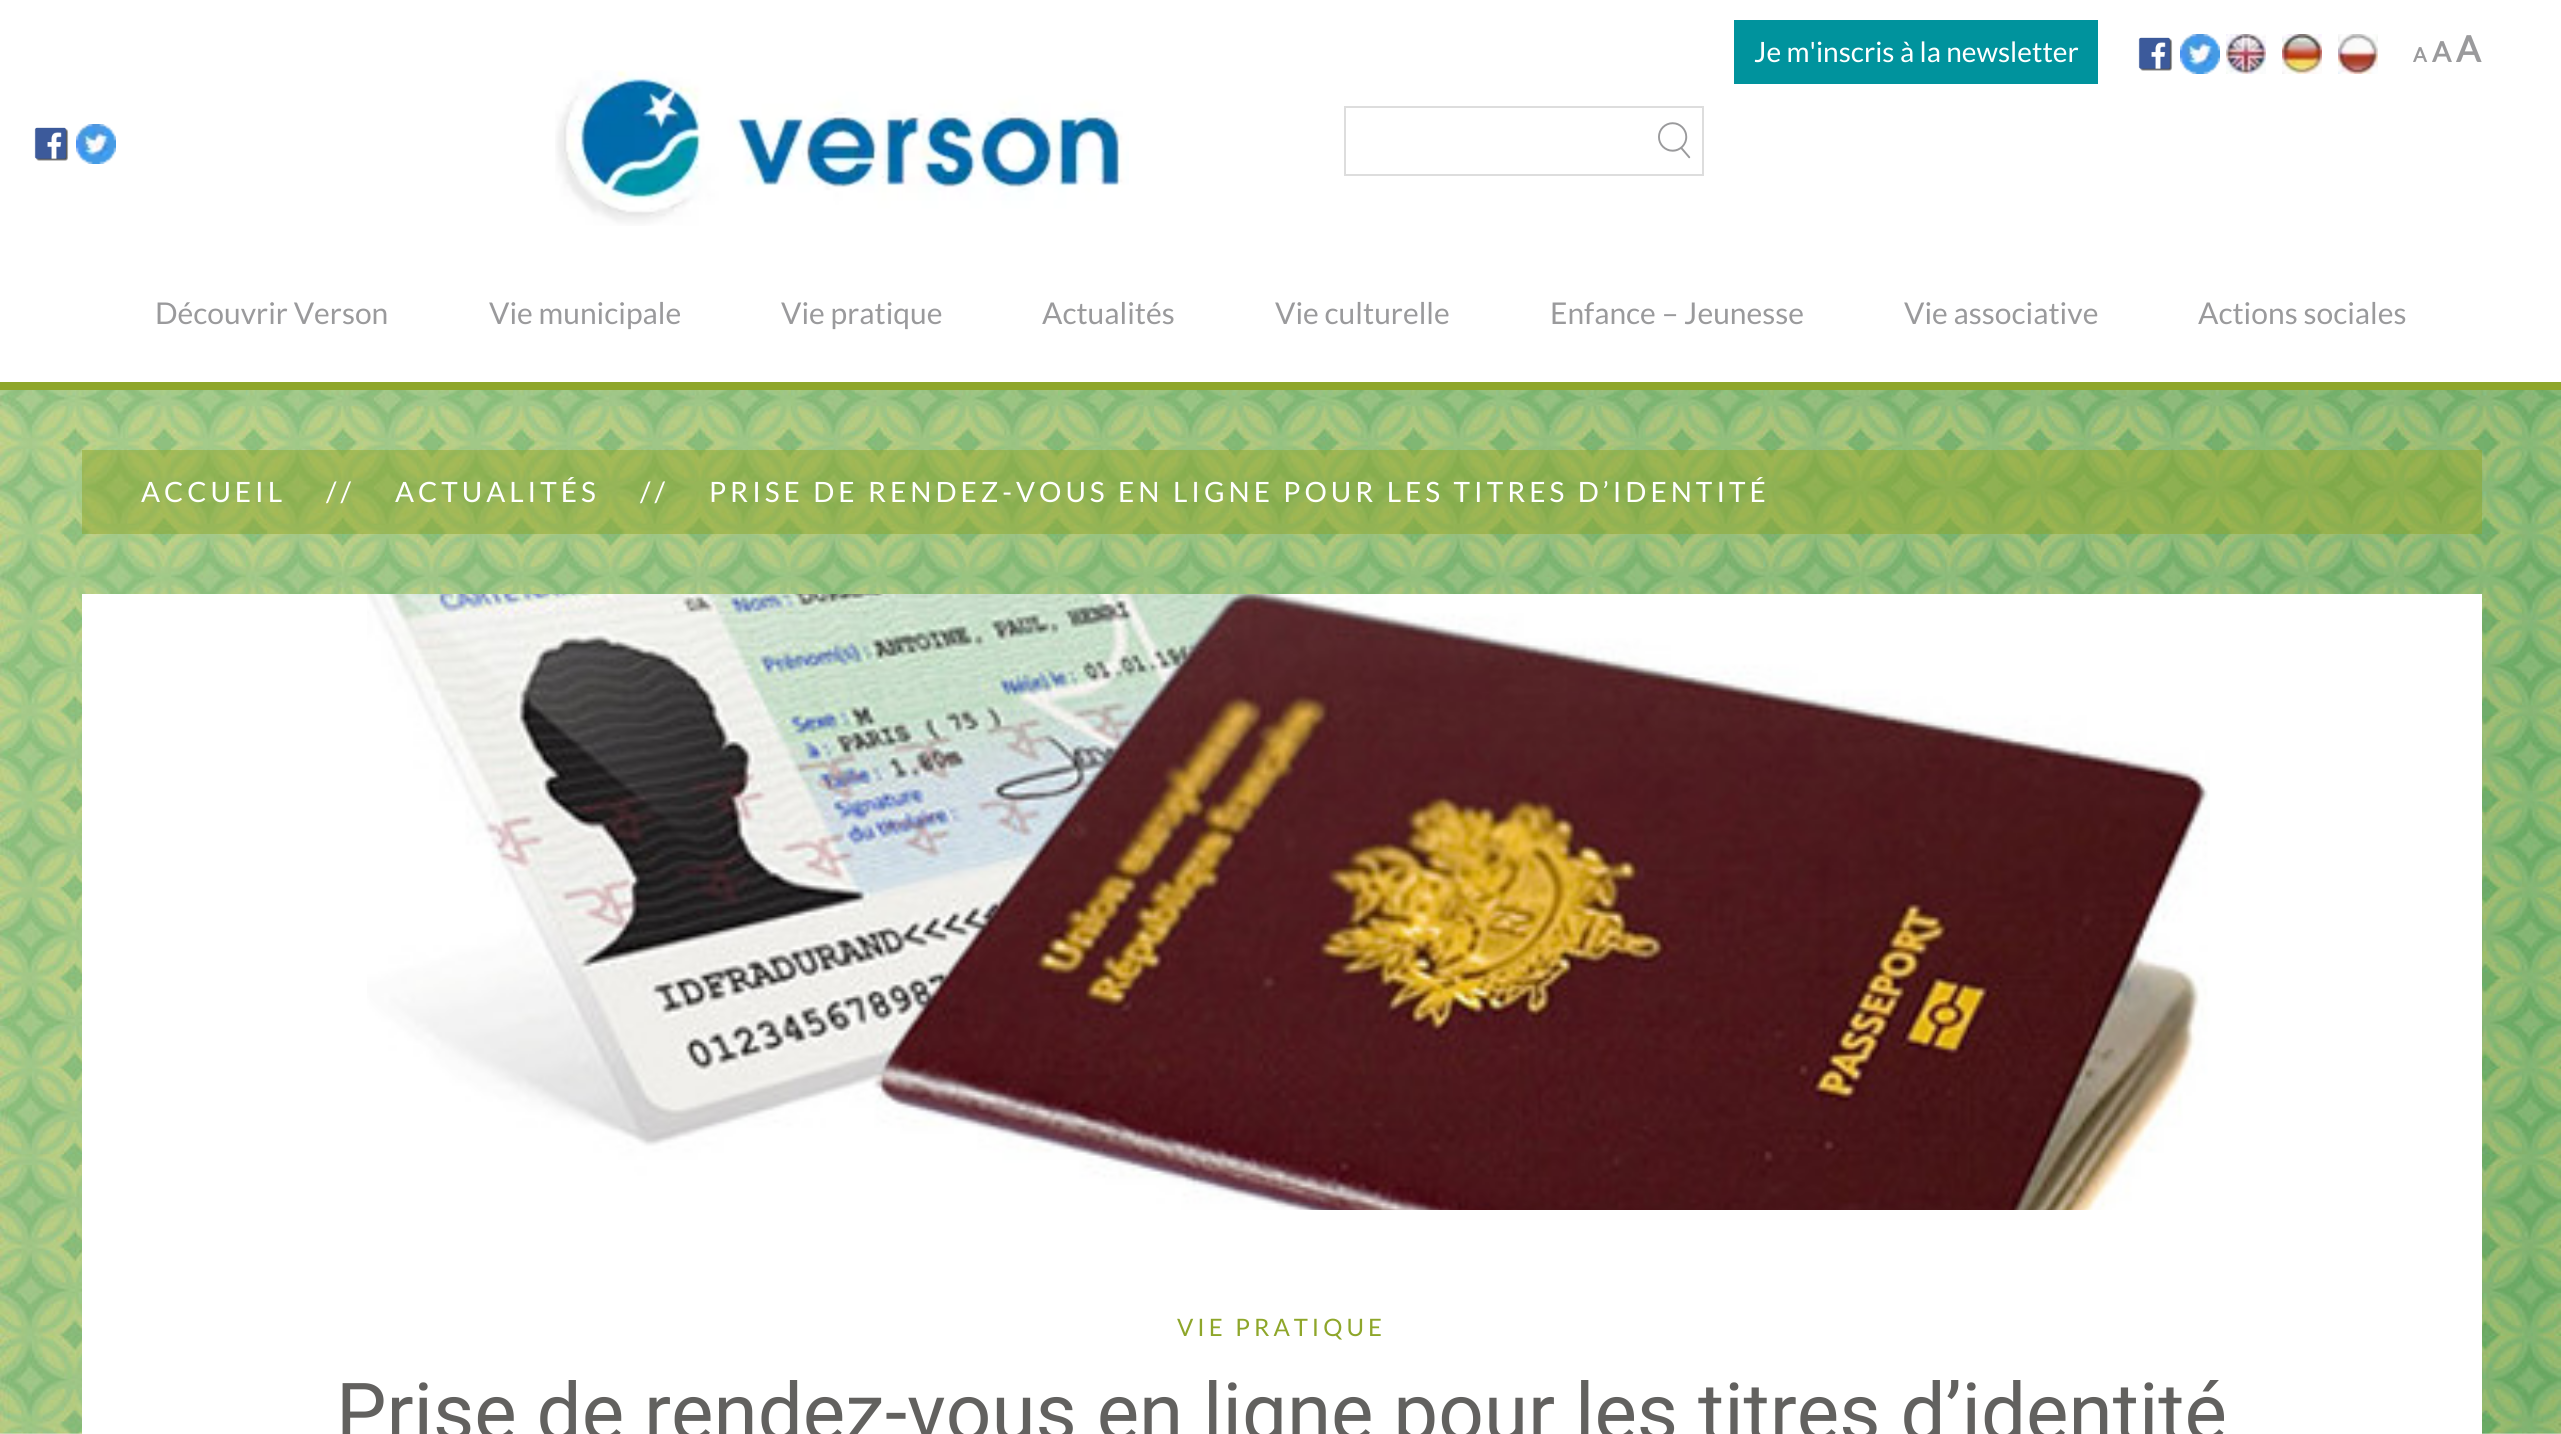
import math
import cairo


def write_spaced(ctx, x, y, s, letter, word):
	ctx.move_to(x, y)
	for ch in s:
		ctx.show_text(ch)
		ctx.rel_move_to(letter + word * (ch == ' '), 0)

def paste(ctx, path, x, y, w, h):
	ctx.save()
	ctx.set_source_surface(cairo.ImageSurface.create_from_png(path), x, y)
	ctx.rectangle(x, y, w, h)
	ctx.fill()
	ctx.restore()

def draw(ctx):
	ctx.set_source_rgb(1, 1, 1)
	ctx.paint()
	paste(ctx, 'media/1.png', 0, 390, 2561, 1044)
	ctx.set_source_rgb(0, 0.576, 0.616)
	ctx.rectangle(1734, 20, 364, 64)
	ctx.fill()
	ctx.select_font_face('Lato')
	ctx.set_font_size(28)
	ctx.set_source_rgb(1, 1, 1)
	ctx.move_to(1754, 62)
	ctx.show_text('Je m\'inscris à la newsletter')
	paste(ctx, 'media/2.png', 2138, 37, 35, 34)
	paste(ctx, 'media/3.png', 2180, 34, 40, 40)
	paste(ctx, 'media/4.png', 2226, 34, 40, 40)
	paste(ctx, 'media/5.png', 2282, 34, 40, 40)
	paste(ctx, 'media/6.png', 2338, 34, 40, 40)
	ctx.select_font_face('Lato', cairo.FONT_SLANT_NORMAL, cairo.FONT_WEIGHT_BOLD)
	ctx.set_font_size(20)
	ctx.set_source_rgb(0.604, 0.604, 0.612)
	ctx.move_to(2413, 62)
	ctx.show_text('A')
	ctx.set_font_size(28)
	ctx.move_to(2432, 62)
	ctx.show_text('A')
	ctx.set_font_size(36)
	ctx.move_to(2456, 62)
	ctx.show_text('A')
	ctx.set_source_rgb(0.557, 0.651, 0.165)
	ctx.rectangle(0, 382, 2561, 8)
	ctx.fill()
	paste(ctx, 'media/2.png', 34, 127, 35, 34)
	paste(ctx, 'media/3.png', 76, 124, 40, 40)
	paste(ctx, 'media/7.png', 555, 70, 574, 156)
	paste(ctx, 'media/8.png', 1658, 122, 33, 37)
	ctx.rectangle(1345, 107, 358, 68)
	ctx.set_source_rgb(0.867, 0.867, 0.867)
	ctx.stroke()
	ctx.select_font_face('Lato')
	ctx.set_font_size(30)
	ctx.set_source_rgb(0.604, 0.604, 0.612)
	for x, y, s in [
		(155, 324, 'Découvrir Verson'),
		(489, 324, 'Vie municipale'),
		(781, 324, 'Vie pratique'),
		(1042, 324, 'Actualités'),
		(1275, 324, 'Vie culturelle'),
		(1550, 324, 'Enfance – Jeunesse'),
		(1904, 324, 'Vie associative'),
		(2198, 324, 'Actions sociales'),
	]:
		ctx.move_to(x, y)
		ctx.show_text(s)
	ctx.set_source_rgba(0.557, 0.651, 0.165, 0.5)
	ctx.rectangle(82, 450, 2400, 84)
	ctx.fill()
	ctx.set_font_size(28)
	ctx.set_source_rgb(1, 1, 1)
	for x, y, s in [
		(141, 502, 'ACCUEIL'),
		(326, 502, '//'),
		(395, 502, 'ACTUALITÉS'),
		(640, 502, '//'),
		(709, 502, 'PRISE DE RENDEZ-VOUS EN LIGNE POUR LES TITRES D’IDENTITÉ'),
	]:
		write_spaced(ctx, x, y, s, 4, 0)
	ctx.rectangle(82, 594, 2400, 840)
	ctx.fill()
	paste(ctx, 'media/9.png', 367, 594, 1843, 616)
	ctx.set_font_size(24)
	ctx.set_source_rgb(0.557, 0.651, 0.165)
	write_spaced(ctx, 1177, 1336, 'VIE PRATIQUE', 4, 0)
	ctx.select_font_face('Roboto')
	ctx.set_font_size(80)
	ctx.set_source_rgb(0.384, 0.38, 0.373)
	ctx.move_to(336, 1440)
	ctx.show_text('Prise de rendez-vous en ligne pour les titres d’identité')


surface = cairo.ImageSurface(cairo.FORMAT_RGB24, 2561, 1434)
ctx = cairo.Context(surface)
options = cairo.FontOptions()
options.set_hint_metrics(cairo.HINT_METRICS_OFF)
options.set_hint_style(cairo.HINT_STYLE_NONE)
ctx.set_font_options(options)
ctx.set_miter_limit(4)
draw(ctx)
surface.write_to_png('image.png')
